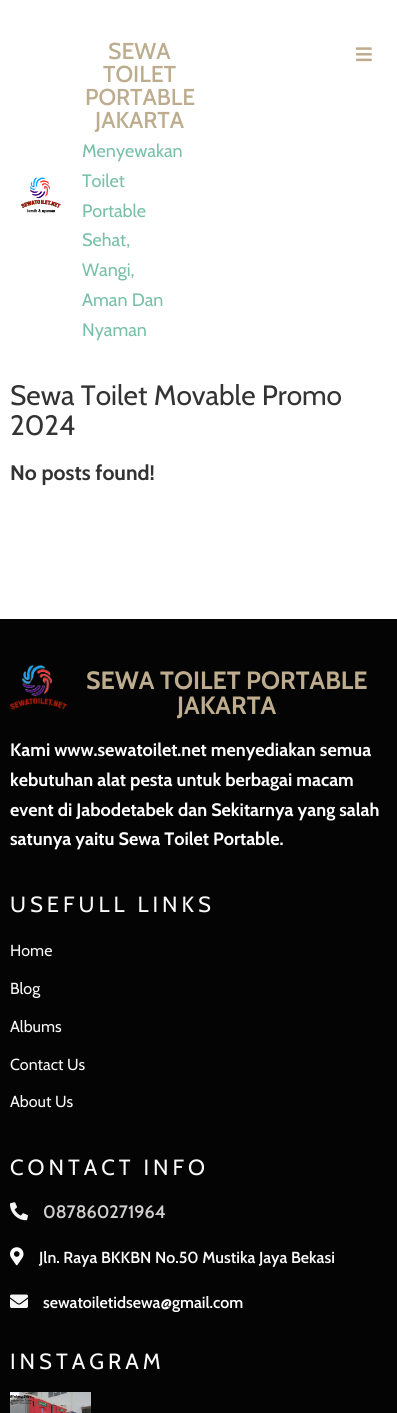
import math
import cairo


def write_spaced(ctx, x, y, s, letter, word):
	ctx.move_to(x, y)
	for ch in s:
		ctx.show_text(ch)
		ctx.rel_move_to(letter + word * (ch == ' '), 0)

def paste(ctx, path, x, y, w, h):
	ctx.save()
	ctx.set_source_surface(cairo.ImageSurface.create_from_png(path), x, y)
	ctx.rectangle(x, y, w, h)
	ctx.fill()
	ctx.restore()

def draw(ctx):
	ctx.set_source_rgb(1, 1, 1)
	ctx.paint()
	paste(ctx, 'media/1.png', 21, 177, 40, 37)
	ctx.select_font_face('Cabin Medium')
	ctx.set_font_size(23)
	ctx.set_source_rgb(0.741, 0.675, 0.557)
	for x, y, s in [
		(108, 59, 'SEWA'),
		(103, 82, 'TOILET'),
		(85, 105, 'PORTABLE'),
		(95, 128, 'JAKARTA'),
	]:
		ctx.move_to(x, y)
		ctx.show_text(s)
	ctx.select_font_face('Cabin')
	ctx.set_font_size(18)
	ctx.set_source_rgb(0.471, 0.753, 0.659)
	for x, y, s in [
		(82, 157, 'Menyewakan'),
		(82, 187, 'Toilet'),
		(82, 217, 'Portable'),
		(82, 246, 'Sehat,'),
		(82, 276, 'Wangi,'),
		(82, 306, 'Aman Dan'),
		(82, 336, 'Nyaman'),
	]:
		ctx.move_to(x, y)
		ctx.show_text(s)
	paste(ctx, 'media/2.png', 356, 47, 16, 15)
	ctx.set_font_size(28)
	ctx.set_source_rgb(0.2, 0.2, 0.2)
	ctx.move_to(10, 405)
	ctx.show_text('Sewa Toilet Movable Promo')
	ctx.move_to(10, 435)
	ctx.show_text('2024')
	ctx.select_font_face('Cabin', cairo.FONT_SLANT_NORMAL, cairo.FONT_WEIGHT_BOLD)
	ctx.set_font_size(21)
	ctx.move_to(10, 480)
	ctx.show_text('No posts found!')
	ctx.set_source_rgb(0.016, 0.016, 0.016)
	ctx.rectangle(0, 619, 397, 794)
	ctx.fill()
	paste(ctx, 'media/3.png', 10, 665, 57, 45)
	ctx.set_font_size(25)
	ctx.set_source_rgb(0.741, 0.675, 0.557)
	ctx.move_to(86, 689)
	ctx.show_text('SEWA TOILET PORTABLE')
	ctx.move_to(177, 714)
	ctx.show_text('JAKARTA')
	ctx.set_font_size(18)
	ctx.set_source_rgb(1, 1, 1)
	for x, y, s in [
		(10, 756, 'Kami www.sewatoilet.net menyediakan semua'),
		(10, 786, 'kebutuhan alat pesta untuk berbagai macam'),
		(10, 816, 'event di Jabodetabek dan Sekitarnya yang salah'),
		(10, 845, 'satunya yaitu Sewa Toilet Portable.'),
	]:
		ctx.move_to(x, y)
		ctx.show_text(s)
	ctx.select_font_face('Cabin')
	ctx.set_font_size(22)
	ctx.set_source_rgb(0.976, 0.973, 0.973)
	write_spaced(ctx, 10, 912, 'USEFULL LINKS', 4, 0)
	ctx.set_font_size(16)
	for x, y, s in [
		(10, 956, 'Home'),
		(10, 994, 'Blog'),
		(10, 1032, 'Albums'),
		(10, 1070, 'Contact Us'),
		(10, 1107, 'About Us'),
	]:
		ctx.move_to(x, y)
		ctx.show_text(s)
	ctx.set_font_size(22)
	write_spaced(ctx, 10, 1175, 'CONTACT INFO', 4, 0)
	paste(ctx, 'media/4.png', 10, 1202, 18, 19)
	ctx.select_font_face('Cabin SemiBold')
	ctx.set_font_size(18)
	ctx.set_source_rgb(0.824, 0.812, 0.812)
	ctx.move_to(43, 1218)
	ctx.show_text('087860271964')
	paste(ctx, 'media/5.png', 10, 1247, 14, 19)
	ctx.set_font_size(16)
	ctx.set_source_rgb(0.976, 0.973, 0.973)
	ctx.move_to(39, 1263)
	ctx.show_text('Jln. Raya BKKBN No.50 Mustika Jaya Bekasi')
	paste(ctx, 'media/6.png', 10, 1294, 18, 14)
	ctx.set_source_rgb(1, 1, 1)
	ctx.move_to(43, 1308)
	ctx.show_text('sewatoiletidsewa@gmail.com')
	ctx.select_font_face('Cabin')
	ctx.set_font_size(22)
	ctx.set_source_rgb(0.976, 0.973, 0.973)
	write_spaced(ctx, 10, 1369, 'INSTAGRAM', 4, 0)
	paste(ctx, 'media/7.png', 10, 1392, 81, 21)


surface = cairo.ImageSurface(cairo.FORMAT_RGB24, 397, 1413)
ctx = cairo.Context(surface)
options = cairo.FontOptions()
options.set_hint_metrics(cairo.HINT_METRICS_OFF)
options.set_hint_style(cairo.HINT_STYLE_NONE)
ctx.set_font_options(options)
ctx.set_miter_limit(4)
draw(ctx)
surface.write_to_png('image.png')
